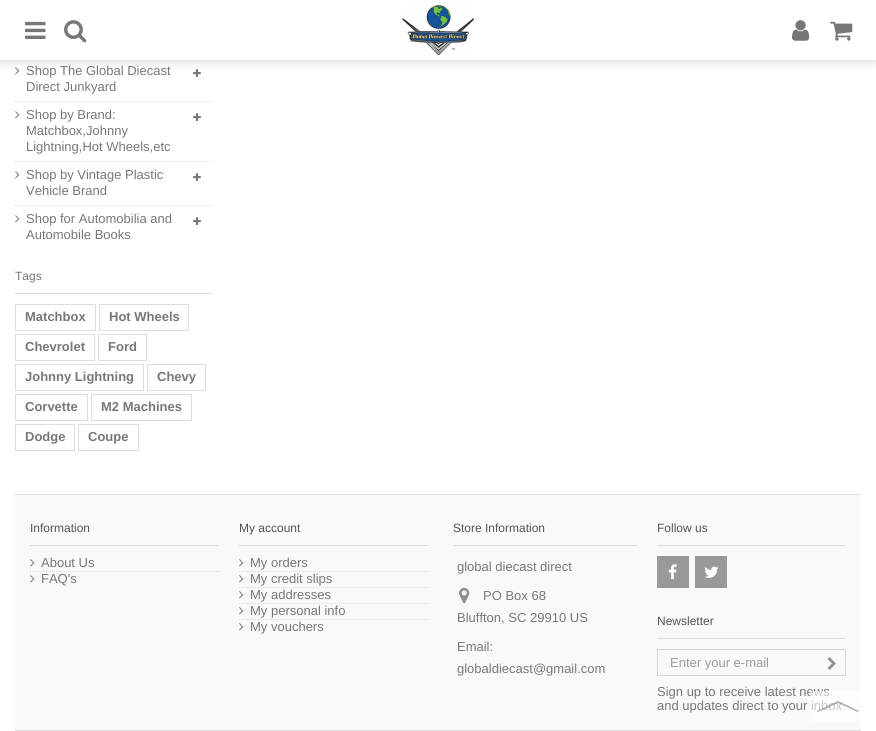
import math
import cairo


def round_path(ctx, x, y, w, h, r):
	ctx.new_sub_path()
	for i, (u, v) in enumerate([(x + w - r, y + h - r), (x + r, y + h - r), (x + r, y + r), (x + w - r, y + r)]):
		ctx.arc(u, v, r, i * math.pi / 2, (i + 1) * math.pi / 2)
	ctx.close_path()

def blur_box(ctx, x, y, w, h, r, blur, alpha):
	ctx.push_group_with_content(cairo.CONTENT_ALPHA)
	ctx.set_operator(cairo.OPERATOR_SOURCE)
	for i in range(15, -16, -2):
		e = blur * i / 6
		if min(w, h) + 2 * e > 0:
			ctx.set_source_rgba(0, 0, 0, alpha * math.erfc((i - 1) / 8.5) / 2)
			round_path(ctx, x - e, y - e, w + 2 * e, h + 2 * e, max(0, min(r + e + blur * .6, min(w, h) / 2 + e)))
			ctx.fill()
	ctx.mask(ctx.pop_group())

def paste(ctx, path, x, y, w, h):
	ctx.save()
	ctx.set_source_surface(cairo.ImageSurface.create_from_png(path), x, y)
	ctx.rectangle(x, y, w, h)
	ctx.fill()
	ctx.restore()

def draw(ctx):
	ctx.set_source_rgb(1, 1, 1)
	ctx.paint()
	paste(ctx, 'media/6.png', 15, 67, 5, 8)
	paste(ctx, 'media/7.png', 193, 69, 8, 8)
	ctx.set_source_rgb(0, 0, 0)
	blur_box(ctx, 0, 2, 876, 60, 0, 5, 0.15)
	ctx.set_source_rgb(1, 1, 1)
	ctx.rectangle(0, 0, 876, 60)
	ctx.fill()
	paste(ctx, 'media/1.png', 25, 21, 21, 18)
	paste(ctx, 'media/2.png', 64, 20, 23, 23)
	paste(ctx, 'media/3.png', 402, 5, 72, 50)
	paste(ctx, 'media/4.png', 792, 20, 18, 21)
	paste(ctx, 'media/5.png', 830, 21, 23, 20)
	ctx.select_font_face('Liberation Sans')
	ctx.set_font_size(13)
	ctx.set_source_rgb(0.467, 0.467, 0.467)
	ctx.move_to(26, 75)
	ctx.show_text('Shop The Global Diecast')
	ctx.move_to(26, 91)
	ctx.show_text('Direct Junkyard')
	ctx.new_path()
	ctx.move_to(15, 101.5)
	ctx.line_to(212, 101.5)
	ctx.set_source_rgb(0.867, 0.867, 0.867)
	ctx.set_line_width(1)
	ctx.set_dash([1, 1])
	ctx.stroke()
	paste(ctx, 'media/6.png', 15, 111, 5, 8)
	ctx.set_source_rgb(0.467, 0.467, 0.467)
	for x, y, s in [
		(26, 119, 'Shop by Brand:'),
		(26, 135, 'Matchbox,Johnny'),
		(26, 151, 'Lightning,Hot Wheels,etc'),
	]:
		ctx.move_to(x, y)
		ctx.show_text(s)
	paste(ctx, 'media/7.png', 193, 113, 8, 8)
	ctx.new_path()
	ctx.move_to(15, 161.5)
	ctx.line_to(212, 161.5)
	ctx.set_source_rgb(0.867, 0.867, 0.867)
	ctx.stroke()
	paste(ctx, 'media/6.png', 15, 171, 5, 8)
	ctx.set_source_rgb(0.467, 0.467, 0.467)
	ctx.move_to(26, 179)
	ctx.show_text('Shop by Vintage Plastic')
	ctx.move_to(26, 195)
	ctx.show_text('Vehicle Brand')
	paste(ctx, 'media/7.png', 193, 173, 8, 8)
	ctx.new_path()
	ctx.move_to(15, 205.5)
	ctx.line_to(212, 205.5)
	ctx.set_source_rgb(0.867, 0.867, 0.867)
	ctx.stroke()
	paste(ctx, 'media/6.png', 15, 215, 5, 8)
	ctx.set_source_rgb(0.467, 0.467, 0.467)
	ctx.move_to(26, 223)
	ctx.show_text('Shop for Automobilia and')
	ctx.move_to(26, 239)
	ctx.show_text('Automobile Books')
	paste(ctx, 'media/7.png', 193, 217, 8, 8)
	ctx.set_source_rgb(0.867, 0.867, 0.867)
	ctx.rectangle(15, 293, 197, 1)
	ctx.fill()
	ctx.set_font_size(12)
	ctx.set_source_rgb(0.467, 0.467, 0.467)
	ctx.move_to(15, 280)
	ctx.show_text('Tags')
	ctx.rectangle(15.5, 304.5, 80, 26)
	ctx.set_source_rgb(0.867, 0.867, 0.867)
	ctx.set_dash([])
	ctx.stroke()
	ctx.select_font_face('Liberation Sans', cairo.FONT_SLANT_NORMAL, cairo.FONT_WEIGHT_BOLD)
	ctx.set_font_size(13)
	ctx.set_source_rgb(0.467, 0.467, 0.467)
	ctx.move_to(25, 321)
	ctx.show_text('Matchbox')
	ctx.rectangle(99.5, 304.5, 89, 26)
	ctx.set_source_rgb(0.867, 0.867, 0.867)
	ctx.stroke()
	ctx.set_source_rgb(0.467, 0.467, 0.467)
	ctx.move_to(109, 321)
	ctx.show_text('Hot Wheels')
	ctx.rectangle(15.5, 334.5, 79, 26)
	ctx.set_source_rgb(0.867, 0.867, 0.867)
	ctx.stroke()
	ctx.set_source_rgb(0.467, 0.467, 0.467)
	ctx.move_to(25, 351)
	ctx.show_text('Chevrolet')
	ctx.rectangle(98.5, 334.5, 48, 26)
	ctx.set_source_rgb(0.867, 0.867, 0.867)
	ctx.stroke()
	ctx.set_source_rgb(0.467, 0.467, 0.467)
	ctx.move_to(108, 351)
	ctx.show_text('Ford')
	ctx.rectangle(15.5, 364.5, 128, 26)
	ctx.set_source_rgb(0.867, 0.867, 0.867)
	ctx.stroke()
	ctx.set_source_rgb(0.467, 0.467, 0.467)
	ctx.move_to(25, 381)
	ctx.show_text('Johnny Lightning')
	ctx.rectangle(147.5, 364.5, 58, 26)
	ctx.set_source_rgb(0.867, 0.867, 0.867)
	ctx.stroke()
	ctx.set_source_rgb(0.467, 0.467, 0.467)
	ctx.move_to(157, 381)
	ctx.show_text('Chevy')
	ctx.rectangle(15.5, 394.5, 72, 26)
	ctx.set_source_rgb(0.867, 0.867, 0.867)
	ctx.stroke()
	ctx.set_source_rgb(0.467, 0.467, 0.467)
	ctx.move_to(25, 411)
	ctx.show_text('Corvette')
	ctx.rectangle(91.5, 394.5, 100, 26)
	ctx.set_source_rgb(0.867, 0.867, 0.867)
	ctx.stroke()
	ctx.set_source_rgb(0.467, 0.467, 0.467)
	ctx.move_to(101, 411)
	ctx.show_text('M2 Machines')
	ctx.rectangle(15.5, 424.5, 59, 26)
	ctx.set_source_rgb(0.867, 0.867, 0.867)
	ctx.stroke()
	ctx.set_source_rgb(0.467, 0.467, 0.467)
	ctx.move_to(25, 441)
	ctx.show_text('Dodge')
	ctx.rectangle(78.5, 424.5, 60, 26)
	ctx.set_source_rgb(0.867, 0.867, 0.867)
	ctx.stroke()
	ctx.set_source_rgb(0.467, 0.467, 0.467)
	ctx.move_to(88, 441)
	ctx.show_text('Coupe')
	ctx.set_source_rgb(0.973, 0.973, 0.973)
	ctx.rectangle(15, 495, 846, 235)
	ctx.fill()
	ctx.set_source_rgb(0.867, 0.867, 0.867)
	ctx.rectangle(15, 494, 846, 1)
	ctx.rectangle(15, 730, 846, 1)
	ctx.rectangle(30, 545, 189, 1)
	ctx.fill()
	ctx.select_font_face('Liberation Sans')
	ctx.set_font_size(12)
	ctx.set_source_rgb(0.333, 0.329, 0.329)
	ctx.move_to(30, 532)
	ctx.show_text('Information')
	paste(ctx, 'media/8.png', 30, 559, 5, 8)
	ctx.set_font_size(13)
	ctx.set_source_rgb(0.467, 0.467, 0.467)
	ctx.move_to(41, 567)
	ctx.show_text('About Us')
	ctx.new_path()
	ctx.move_to(30, 571.5)
	ctx.line_to(219, 571.5)
	ctx.set_source_rgb(0.867, 0.867, 0.867)
	ctx.set_dash([1, 1])
	ctx.stroke()
	paste(ctx, 'media/8.png', 30, 575, 5, 8)
	ctx.set_source_rgb(0.467, 0.467, 0.467)
	ctx.move_to(41, 583)
	ctx.show_text('FAQ\'s')
	ctx.set_source_rgb(0.867, 0.867, 0.867)
	ctx.rectangle(239, 545, 189, 1)
	ctx.fill()
	ctx.set_font_size(12)
	ctx.set_source_rgb(0.333, 0.329, 0.329)
	ctx.move_to(239, 532)
	ctx.show_text('My account')
	paste(ctx, 'media/8.png', 239, 559, 5, 8)
	ctx.set_font_size(13)
	ctx.set_source_rgb(0.467, 0.467, 0.467)
	ctx.move_to(250, 567)
	ctx.show_text('My orders')
	ctx.new_path()
	ctx.move_to(239, 571.5)
	ctx.line_to(428, 571.5)
	ctx.set_source_rgb(0.867, 0.867, 0.867)
	ctx.stroke()
	paste(ctx, 'media/8.png', 239, 575, 5, 8)
	ctx.set_source_rgb(0.467, 0.467, 0.467)
	ctx.move_to(250, 583)
	ctx.show_text('My credit slips')
	ctx.new_path()
	ctx.move_to(239, 587.5)
	ctx.line_to(428, 587.5)
	ctx.set_source_rgb(0.867, 0.867, 0.867)
	ctx.stroke()
	paste(ctx, 'media/8.png', 239, 591, 5, 8)
	ctx.set_source_rgb(0.467, 0.467, 0.467)
	ctx.move_to(250, 599)
	ctx.show_text('My addresses')
	ctx.new_path()
	ctx.move_to(239, 603.5)
	ctx.line_to(428, 603.5)
	ctx.set_source_rgb(0.867, 0.867, 0.867)
	ctx.stroke()
	paste(ctx, 'media/8.png', 239, 607, 5, 8)
	ctx.set_source_rgb(0.467, 0.467, 0.467)
	ctx.move_to(250, 615)
	ctx.show_text('My personal info')
	ctx.new_path()
	ctx.move_to(239, 619.5)
	ctx.line_to(428, 619.5)
	ctx.set_source_rgb(0.867, 0.867, 0.867)
	ctx.stroke()
	paste(ctx, 'media/8.png', 239, 623, 5, 8)
	ctx.set_source_rgb(0.467, 0.467, 0.467)
	ctx.move_to(250, 631)
	ctx.show_text('My vouchers')
	ctx.set_source_rgb(0.867, 0.867, 0.867)
	ctx.rectangle(453, 545, 184, 1)
	ctx.fill()
	ctx.set_font_size(12)
	ctx.set_source_rgb(0.333, 0.329, 0.329)
	ctx.move_to(453, 532)
	ctx.show_text('Store Information')
	ctx.set_font_size(13)
	ctx.set_source_rgb(0.467, 0.467, 0.467)
	ctx.move_to(457, 571)
	ctx.show_text('global diecast direct')
	paste(ctx, 'media/9.png', 459, 587, 11, 17)
	for x, y, s in [
		(483, 600, 'PO Box 68'),
		(457, 622, 'Bluffton, SC 29910 US'),
		(457, 651, 'Email:'),
		(457, 673, 'globaldiecast@gmail.com'),
	]:
		ctx.move_to(x, y)
		ctx.show_text(s)
	ctx.set_source_rgb(0.867, 0.867, 0.867)
	ctx.rectangle(657, 545, 189, 1)
	ctx.fill()
	ctx.set_font_size(12)
	ctx.set_source_rgb(0.333, 0.329, 0.329)
	ctx.move_to(657, 532)
	ctx.show_text('Follow us')
	ctx.set_source_rgb(0.6, 0.6, 0.608)
	ctx.rectangle(657, 556, 32, 32)
	ctx.fill()
	paste(ctx, 'media/10.png', 668, 564, 9, 16)
	ctx.rectangle(695, 556, 32, 32)
	ctx.fill()
	paste(ctx, 'media/11.png', 704, 566, 15, 12)
	ctx.set_source_rgb(0.867, 0.867, 0.867)
	ctx.rectangle(657, 638, 189, 1)
	ctx.fill()
	ctx.set_source_rgb(0.333, 0.329, 0.329)
	ctx.move_to(657, 625)
	ctx.show_text('Newsletter')
	ctx.rectangle(657.5, 649.5, 188, 26)
	ctx.set_source_rgb(0.839, 0.831, 0.831)
	ctx.set_dash([])
	ctx.stroke()
	ctx.set_font_size(13)
	ctx.set_source_rgb(0.612, 0.608, 0.608)
	ctx.move_to(670, 667)
	ctx.show_text('Enter your e-mail')
	paste(ctx, 'media/12.png', 827, 657, 9, 13)
	ctx.set_source_rgb(0.467, 0.467, 0.467)
	ctx.move_to(657, 696)
	ctx.show_text('Sign up to receive latest news')
	ctx.move_to(657, 710)
	ctx.show_text('and updates direct to your inbox')
	ctx.set_source_rgba(1, 1, 1, 0.6)
	ctx.rectangle(810, 691, 51, 30)
	ctx.fill()
	ctx.set_source_rgba(0.467, 0.467, 0.467, 0.6)
	ctx.new_path()
	ctx.move_to(838, 703)
	ctx.line_to(858, 712)
	ctx.line_to(859, 711)
	ctx.line_to(838, 701)
	ctx.close_path()
	ctx.move_to(817, 711)
	ctx.line_to(818, 712)
	ctx.line_to(838, 703)
	ctx.line_to(838, 701)
	ctx.close_path()
	ctx.fill()


surface = cairo.ImageSurface(cairo.FORMAT_RGB24, 876, 731)
ctx = cairo.Context(surface)
options = cairo.FontOptions()
options.set_hint_metrics(cairo.HINT_METRICS_OFF)
options.set_hint_style(cairo.HINT_STYLE_NONE)
ctx.set_font_options(options)
ctx.set_miter_limit(4)
draw(ctx)
surface.write_to_png('image.png')
